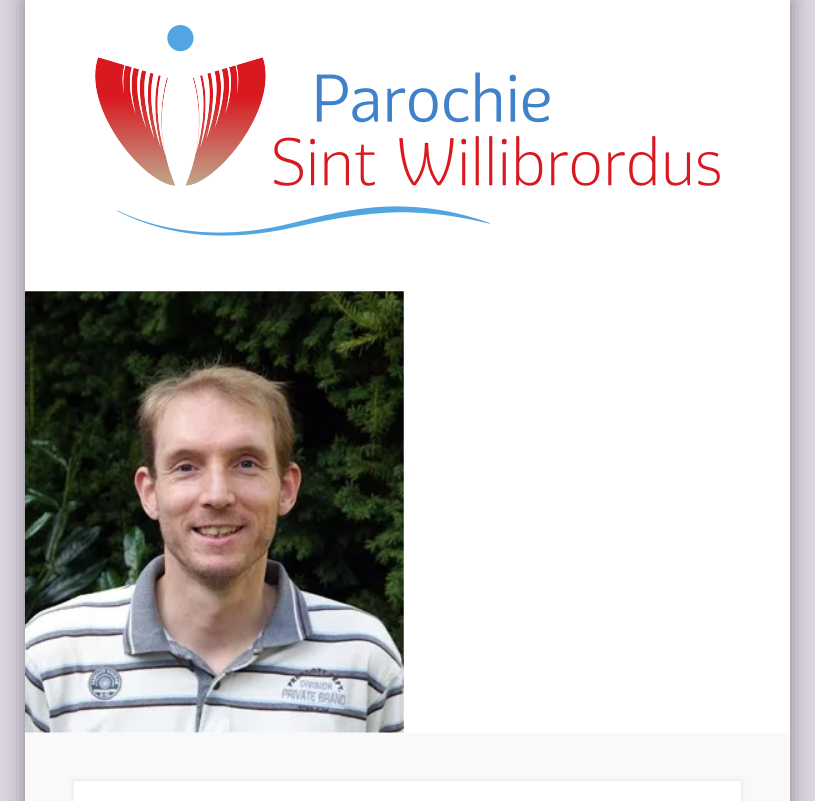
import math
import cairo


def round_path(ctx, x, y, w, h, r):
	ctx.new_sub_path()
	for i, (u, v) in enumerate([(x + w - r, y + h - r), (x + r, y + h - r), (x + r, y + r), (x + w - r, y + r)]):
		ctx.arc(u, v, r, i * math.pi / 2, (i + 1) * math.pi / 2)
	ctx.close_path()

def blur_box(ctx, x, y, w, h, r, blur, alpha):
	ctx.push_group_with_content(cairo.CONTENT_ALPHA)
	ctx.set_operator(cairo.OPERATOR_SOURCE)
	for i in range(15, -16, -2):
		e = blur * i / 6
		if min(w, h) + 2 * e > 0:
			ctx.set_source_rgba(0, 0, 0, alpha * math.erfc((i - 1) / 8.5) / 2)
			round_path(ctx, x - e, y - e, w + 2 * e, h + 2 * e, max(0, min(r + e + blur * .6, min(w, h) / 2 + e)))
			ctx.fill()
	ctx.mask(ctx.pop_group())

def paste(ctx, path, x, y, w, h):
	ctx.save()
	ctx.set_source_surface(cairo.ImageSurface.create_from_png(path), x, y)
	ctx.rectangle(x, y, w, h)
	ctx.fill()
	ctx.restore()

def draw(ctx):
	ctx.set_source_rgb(0.863, 0.835, 0.886)
	ctx.paint()
	ctx.set_source_rgb(0, 0, 0)
	blur_box(ctx, 25, 0, 765, 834, 0, 11, 0.4)
	ctx.set_source_rgb(0.973, 0.973, 0.973)
	ctx.rectangle(25, 733, 765, 68)
	ctx.fill()
	ctx.set_source_rgb(1, 1, 1)
	ctx.rectangle(25, 0, 765, 733)
	ctx.fill()
	paste(ctx, 'media/1.png', 95, 25, 625, 211)
	paste(ctx, 'media/2.png', 25, 291, 379, 442)
	ctx.set_source_rgb(0, 0, 0)
	blur_box(ctx, 74, 781, 667, 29, 0, 3, 0.1)
	ctx.set_source_rgb(1, 1, 1)
	ctx.rectangle(74, 781, 667, 20)
	ctx.fill()


surface = cairo.ImageSurface(cairo.FORMAT_RGB24, 815, 801)
ctx = cairo.Context(surface)
options = cairo.FontOptions()
options.set_hint_metrics(cairo.HINT_METRICS_OFF)
options.set_hint_style(cairo.HINT_STYLE_NONE)
ctx.set_font_options(options)
ctx.set_miter_limit(4)
draw(ctx)
surface.write_to_png('image.png')
